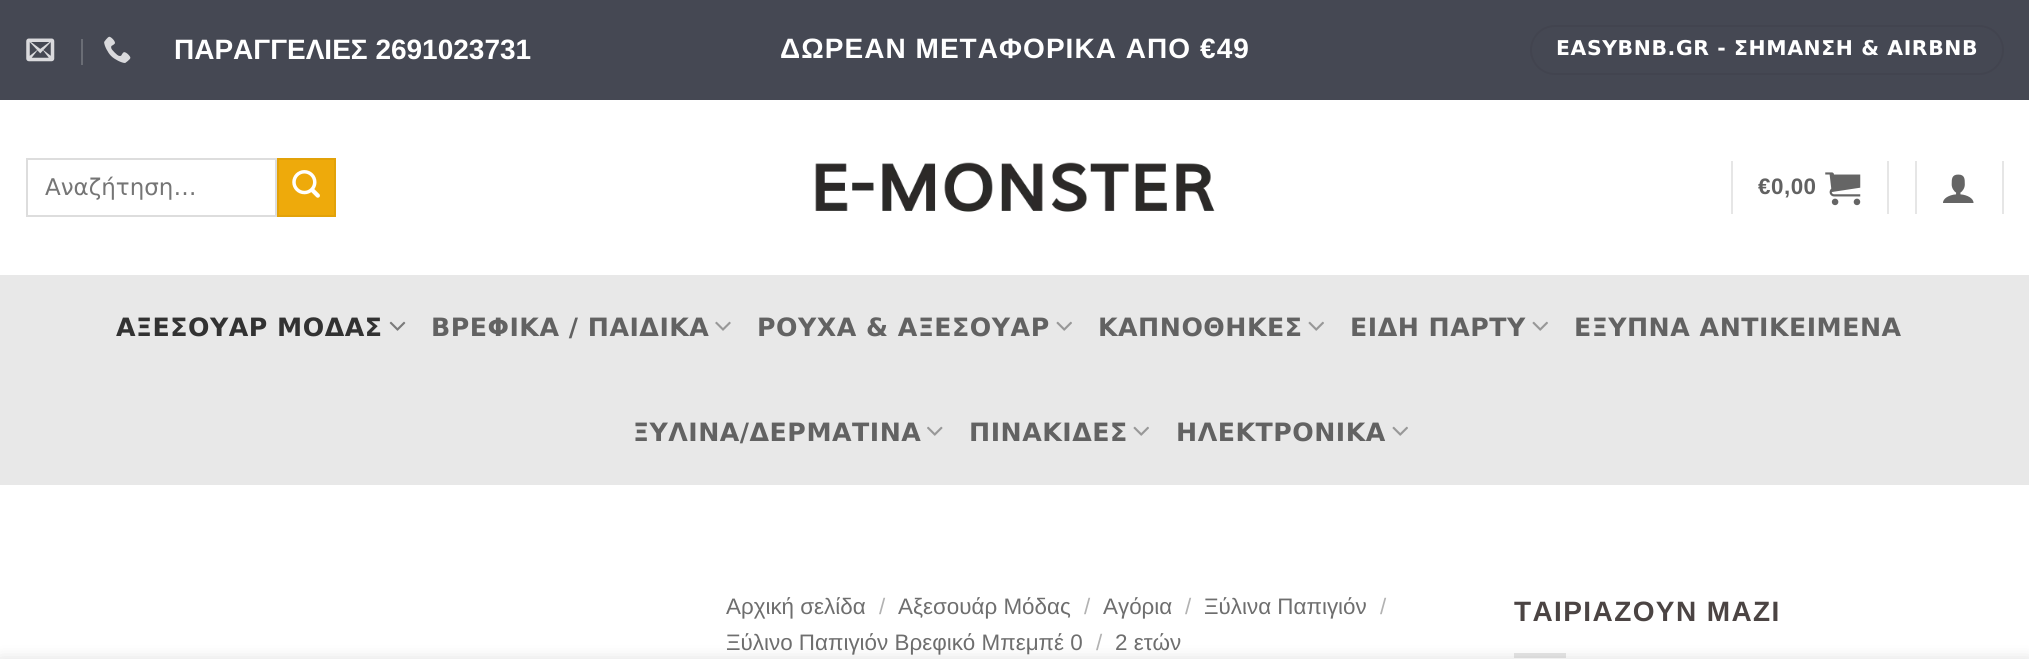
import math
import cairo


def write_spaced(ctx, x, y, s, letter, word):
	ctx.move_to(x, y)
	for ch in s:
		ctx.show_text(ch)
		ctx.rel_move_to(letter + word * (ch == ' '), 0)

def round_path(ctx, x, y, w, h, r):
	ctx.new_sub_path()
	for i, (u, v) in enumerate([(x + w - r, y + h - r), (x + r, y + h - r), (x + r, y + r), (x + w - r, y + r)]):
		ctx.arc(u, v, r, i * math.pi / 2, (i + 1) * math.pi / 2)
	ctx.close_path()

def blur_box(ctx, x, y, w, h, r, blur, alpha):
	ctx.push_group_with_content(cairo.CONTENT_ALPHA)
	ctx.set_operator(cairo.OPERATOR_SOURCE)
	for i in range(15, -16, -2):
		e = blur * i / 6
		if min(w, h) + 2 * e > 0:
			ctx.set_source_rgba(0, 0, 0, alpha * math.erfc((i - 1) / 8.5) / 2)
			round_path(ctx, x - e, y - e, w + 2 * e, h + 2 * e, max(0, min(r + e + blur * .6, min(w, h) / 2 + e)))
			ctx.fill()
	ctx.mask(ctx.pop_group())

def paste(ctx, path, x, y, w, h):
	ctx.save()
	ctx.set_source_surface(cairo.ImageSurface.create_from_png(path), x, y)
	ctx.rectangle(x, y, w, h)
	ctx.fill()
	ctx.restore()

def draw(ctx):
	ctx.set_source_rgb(1, 1, 1)
	ctx.paint()
	ctx.set_source_rgb(0.271, 0.282, 0.325)
	ctx.rectangle(0, 0, 2029, 100)
	ctx.fill()
	paste(ctx, 'media/1.png', 26, 38, 29, 24)
	ctx.set_source_rgb(0.416, 0.427, 0.459)
	ctx.rectangle(81, 39, 2, 26)
	ctx.fill()
	paste(ctx, 'media/2.png', 104, 36, 27, 27)
	ctx.select_font_face('Liberation Sans', cairo.FONT_SLANT_NORMAL, cairo.FONT_WEIGHT_BOLD)
	ctx.set_font_size(28)
	ctx.set_source_rgb(1, 1, 1)
	ctx.move_to(174, 59)
	ctx.show_text('ΠΑΡΑΓΓΕΛΙΕΣ 2691023731')
	write_spaced(ctx, 780, 58, 'ΔΩΡΕΑΝ ΜΕΤΑΦΟΡΙΚΑ ΑΠΟ €49', 1.05, 0)
	round_path(ctx, 1531, 26, 472, 48, 24)
	ctx.set_source_rgb(0.259, 0.267, 0.31)
	ctx.stroke()
	ctx.select_font_face('DejaVu Sans', cairo.FONT_SLANT_NORMAL, cairo.FONT_WEIGHT_BOLD)
	ctx.set_font_size(20.4)
	ctx.set_source_rgb(1, 1, 1)
	write_spaced(ctx, 1556, 55, 'EASYBNB.GR - ΣΗΜΑΝΣΗ & AIRBNB', 0.6, 0)
	ctx.rectangle(27, 159, 249, 57)
	ctx.set_source_rgb(0.867, 0.867, 0.867)
	ctx.stroke()
	ctx.select_font_face('DejaVu Sans')
	ctx.set_font_size(23)
	ctx.set_source_rgb(0.459, 0.459, 0.459)
	ctx.move_to(45, 195)
	ctx.show_text('Αναζήτηση…')
	ctx.set_source_rgb(0.933, 0.667, 0.043)
	ctx.rectangle(278, 159, 57, 57)
	ctx.fill_preserve()
	ctx.set_source_rgb(0.886, 0.635, 0.039)
	ctx.stroke()
	paste(ctx, 'media/3.png', 292, 170, 28, 28)
	paste(ctx, 'media/4.png', 815, 162, 400, 50)
	ctx.set_source_rgb(0.902, 0.902, 0.902)
	ctx.rectangle(1731, 161, 2, 53)
	ctx.fill()
	ctx.select_font_face('Liberation Sans', cairo.FONT_SLANT_NORMAL, cairo.FONT_WEIGHT_BOLD)
	ctx.set_font_size(22.4)
	ctx.set_source_rgb(0.384, 0.384, 0.384)
	write_spaced(ctx, 1758, 194, '€0,00', 0.5, 0)
	paste(ctx, 'media/5.png', 1825, 172, 36, 34)
	ctx.set_source_rgb(0.902, 0.902, 0.902)
	ctx.rectangle(1887, 161, 2, 53)
	ctx.fill()
	ctx.rectangle(1915, 161, 2, 53)
	ctx.fill()
	paste(ctx, 'media/6.png', 1943, 174, 31, 29)
	ctx.rectangle(2002, 161, 2, 53)
	ctx.fill()
	ctx.set_source_rgb(0.91, 0.91, 0.91)
	ctx.rectangle(0, 275, 2029, 210)
	ctx.fill()
	ctx.select_font_face('DejaVu Sans', cairo.FONT_SLANT_NORMAL, cairo.FONT_WEIGHT_BOLD)
	ctx.set_font_size(25.25)
	ctx.set_source_rgb(0.196, 0.196, 0.196)
	write_spaced(ctx, 116, 336, 'ΑΞΕΣΟΥΑΡ ΜΟΔΑΣ', 0.5, 0)
	paste(ctx, 'media/7.png', 389, 321, 17, 10)
	ctx.set_source_rgb(0.384, 0.384, 0.384)
	write_spaced(ctx, 431, 336, 'ΒΡΕΦΙΚΑ / ΠΑΙΔΙΚΑ', 0.5, 0)
	paste(ctx, 'media/8.png', 715, 321, 16, 10)
	write_spaced(ctx, 757, 336, 'ΡΟΥΧΑ & ΑΞΕΣΟΥΑΡ', 0.5, 0)
	paste(ctx, 'media/9.png', 1056, 321, 16, 10)
	write_spaced(ctx, 1098, 336, 'ΚΑΠΝΟΘΗΚΕΣ', 0.5, 0)
	paste(ctx, 'media/9.png', 1308, 321, 16, 10)
	write_spaced(ctx, 1350, 336, 'ΕΙΔΗ ΠΑΡΤΥ', 0.5, 0)
	paste(ctx, 'media/9.png', 1532, 321, 16, 10)
	write_spaced(ctx, 1574, 336, 'ΕΞΥΠΝΑ ΑΝΤΙΚΕΙΜΕΝΑ', 0.5, 0)
	write_spaced(ctx, 633, 441, 'ΞΥΛΙΝΑ/ΔΕΡΜΑΤΙΝΑ', 0.5, 0)
	paste(ctx, 'media/10.png', 927, 426, 16, 10)
	write_spaced(ctx, 969, 441, 'ΠΙΝΑΚΙΔΕΣ', 0.5, 0)
	paste(ctx, 'media/9.png', 1133, 426, 16, 10)
	write_spaced(ctx, 1176, 441, 'ΗΛΕΚΤΡΟΝΙΚΑ', 0.5, 0)
	paste(ctx, 'media/9.png', 1392, 426, 16, 10)
	ctx.select_font_face('Liberation Sans')
	ctx.set_font_size(22.4)
	ctx.set_source_rgb(0.431, 0.431, 0.431)
	ctx.move_to(726, 614)
	ctx.show_text('Αρχική σελίδα')
	ctx.set_source_rgb(0.698, 0.698, 0.698)
	ctx.move_to(879, 614)
	ctx.show_text('/')
	ctx.set_source_rgb(0.431, 0.431, 0.431)
	ctx.move_to(898, 614)
	ctx.show_text('Αξεσουάρ Μόδας')
	ctx.set_source_rgb(0.698, 0.698, 0.698)
	ctx.move_to(1084, 614)
	ctx.show_text('/')
	ctx.set_source_rgb(0.431, 0.431, 0.431)
	ctx.move_to(1103, 614)
	ctx.show_text('Αγόρια')
	ctx.set_source_rgb(0.698, 0.698, 0.698)
	ctx.move_to(1185, 614)
	ctx.show_text('/')
	ctx.set_source_rgb(0.431, 0.431, 0.431)
	ctx.move_to(1204, 614)
	ctx.show_text('Ξύλινα Παπιγιόν')
	ctx.set_source_rgb(0.698, 0.698, 0.698)
	ctx.move_to(1380, 614)
	ctx.show_text('/')
	ctx.set_source_rgb(0.431, 0.431, 0.431)
	ctx.move_to(726, 650)
	ctx.show_text('Ξύλινο Παπιγιόν Βρεφικό Μπεμπέ 0')
	ctx.set_source_rgb(0.698, 0.698, 0.698)
	ctx.move_to(1096, 650)
	ctx.show_text('/')
	ctx.set_source_rgb(0.431, 0.431, 0.431)
	ctx.move_to(1115, 650)
	ctx.show_text('2 ετών')
	ctx.select_font_face('Liberation Sans', cairo.FONT_SLANT_NORMAL, cairo.FONT_WEIGHT_BOLD)
	ctx.set_font_size(28)
	ctx.set_source_rgb(0.294, 0.267, 0.263)
	write_spaced(ctx, 1514, 621, 'ΤΑΙΡΙΑΖΟΥΝ ΜΑΖΙ', 1.4, 0)
	ctx.set_source_rgb(0.902, 0.902, 0.902)
	ctx.rectangle(1514, 653, 52, 5)
	ctx.fill()
	ctx.set_source_rgb(0, 0, 0)
	blur_box(ctx, 0, 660, 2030, 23, 0, 8, 0.14)


surface = cairo.ImageSurface(cairo.FORMAT_RGB24, 2029, 659)
ctx = cairo.Context(surface)
options = cairo.FontOptions()
options.set_hint_metrics(cairo.HINT_METRICS_OFF)
options.set_hint_style(cairo.HINT_STYLE_NONE)
ctx.set_font_options(options)
ctx.set_miter_limit(4)
draw(ctx)
surface.write_to_png('image.png')
